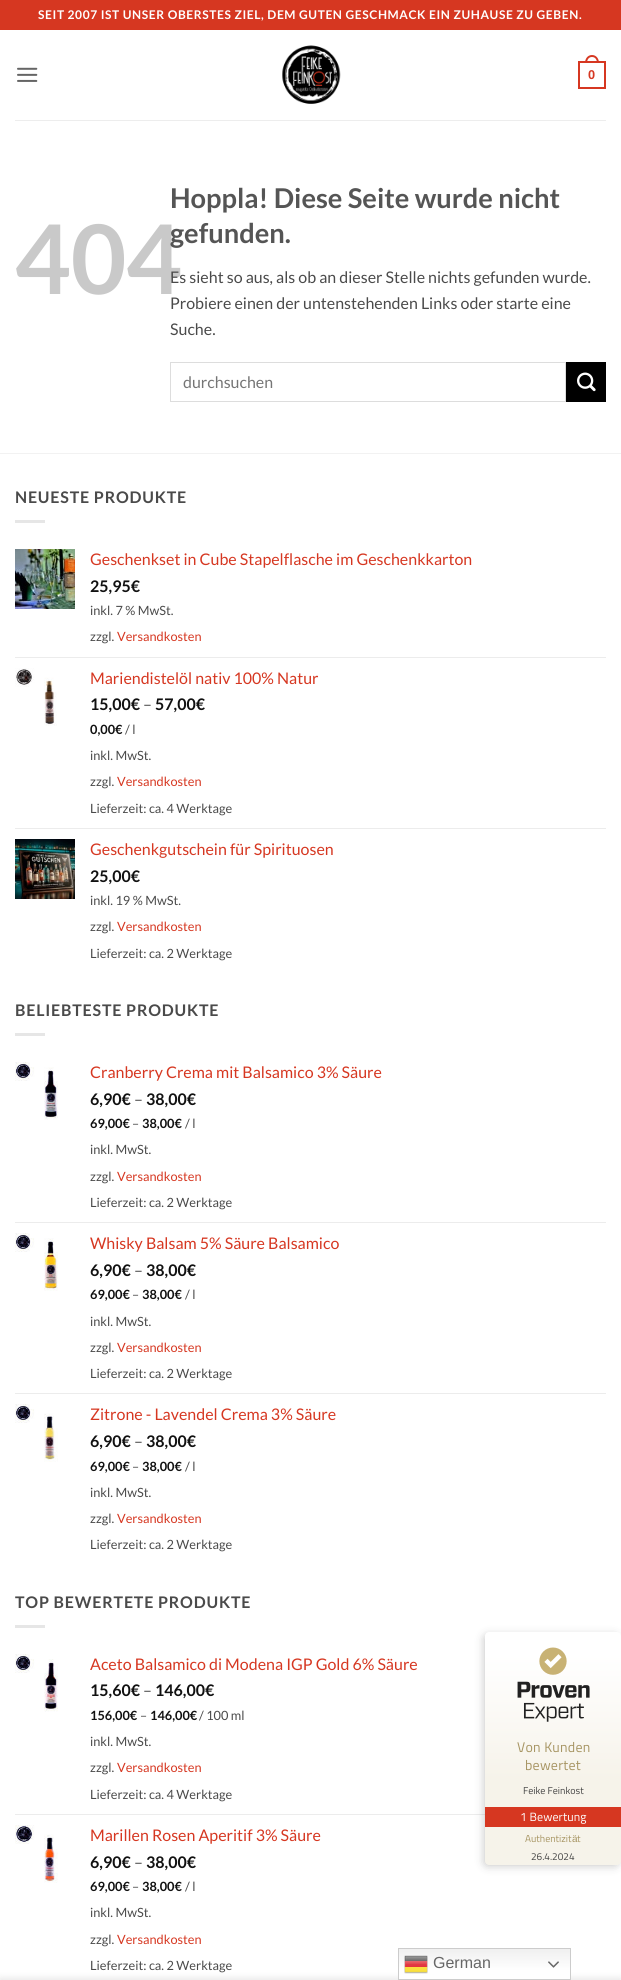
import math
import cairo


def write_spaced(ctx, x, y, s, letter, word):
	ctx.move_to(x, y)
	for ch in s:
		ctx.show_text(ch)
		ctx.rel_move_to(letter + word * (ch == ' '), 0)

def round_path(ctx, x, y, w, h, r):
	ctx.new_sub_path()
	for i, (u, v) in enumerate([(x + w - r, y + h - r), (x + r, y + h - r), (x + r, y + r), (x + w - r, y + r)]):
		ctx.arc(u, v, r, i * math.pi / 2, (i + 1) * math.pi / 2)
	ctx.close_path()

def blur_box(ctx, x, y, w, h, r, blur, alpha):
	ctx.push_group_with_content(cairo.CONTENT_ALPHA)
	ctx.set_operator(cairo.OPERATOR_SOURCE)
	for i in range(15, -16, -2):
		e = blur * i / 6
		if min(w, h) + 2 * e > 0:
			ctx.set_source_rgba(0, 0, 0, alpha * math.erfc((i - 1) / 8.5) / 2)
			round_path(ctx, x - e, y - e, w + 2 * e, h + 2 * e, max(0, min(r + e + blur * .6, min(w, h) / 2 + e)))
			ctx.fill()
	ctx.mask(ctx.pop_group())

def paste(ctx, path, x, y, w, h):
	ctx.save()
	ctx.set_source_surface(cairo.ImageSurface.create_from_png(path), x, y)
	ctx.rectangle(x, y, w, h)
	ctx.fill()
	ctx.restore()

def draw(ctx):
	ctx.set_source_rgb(1, 1, 1)
	ctx.paint()
	ctx.set_source_rgb(0.839, 0.216, 0.129)
	ctx.rectangle(0, 0, 621, 30)
	ctx.fill()
	ctx.select_font_face('Lato', cairo.FONT_SLANT_NORMAL, cairo.FONT_WEIGHT_BOLD)
	ctx.set_font_size(12)
	ctx.set_source_rgb(1, 1, 1)
	write_spaced(ctx, 38, 19, 'SEIT 2007 IST UNSER OBERSTES ZIEL, DEM GUTEN GESCHMACK EIN ZUHAUSE ZU GEBEN.', 0.6, 0)
	paste(ctx, 'media/1.png', 17, 67, 21, 15)
	paste(ctx, 'media/2.png', 282, 45, 59, 59)
	ctx.rectangle(579, 62, 26, 26)
	ctx.set_source_rgb(0.839, 0.216, 0.129)
	ctx.stroke()
	ctx.set_fill_rule(cairo.FILL_RULE_EVEN_ODD)
	ctx.new_path()
	ctx.move_to(592, 55)
	ctx.curve_to(596.5, 55, 599, 59, 599, 63)
	ctx.line_to(585, 63)
	ctx.curve_to(585, 59, 587.5, 55, 592, 55)
	ctx.close_path()
	ctx.move_to(592, 57)
	ctx.curve_to(595.5, 57, 597, 60, 597, 63)
	ctx.line_to(587, 63)
	ctx.curve_to(587, 60, 588.5, 57, 592, 57)
	ctx.close_path()
	ctx.fill()
	ctx.select_font_face('Liberation Sans', cairo.FONT_SLANT_NORMAL, cairo.FONT_WEIGHT_BOLD)
	ctx.set_font_size(12.75)
	ctx.move_to(588, 79)
	ctx.show_text('0')
	ctx.set_source_rgb(0.929, 0.929, 0.929)
	ctx.rectangle(15, 120, 591, 1)
	ctx.fill()
	ctx.select_font_face('Lato', cairo.FONT_SLANT_NORMAL, cairo.FONT_WEIGHT_BOLD)
	ctx.set_font_size(96)
	ctx.set_source_rgb(0.788, 0.788, 0.788)
	ctx.move_to(15, 294)
	ctx.show_text('404')
	ctx.set_font_size(27.25)
	ctx.set_source_rgb(0.333, 0.333, 0.333)
	ctx.move_to(170, 208)
	ctx.show_text('Hoppla! Diese Seite wurde nicht')
	ctx.move_to(170, 243)
	ctx.show_text('gefunden.')
	ctx.select_font_face('Lato')
	ctx.set_font_size(16)
	ctx.set_source_rgb(0.29, 0.29, 0.29)
	for x, y, s in [
		(170, 283, 'Es sieht so aus, als ob an dieser Stelle nichts gefunden wurde.'),
		(170, 309, 'Probiere einen der untenstehenden Links oder starte eine'),
		(170, 335, 'Suche.'),
	]:
		ctx.move_to(x, y)
		ctx.show_text(s)
	ctx.rectangle(170.5, 362.5, 395, 39)
	ctx.set_source_rgb(0.867, 0.867, 0.867)
	ctx.set_line_width(1)
	ctx.stroke()
	ctx.set_source_rgb(0.459, 0.459, 0.459)
	ctx.move_to(183, 388)
	ctx.show_text('durchsuchen')
	ctx.set_source_rgb(0, 0, 0)
	ctx.rectangle(566, 362, 40, 40)
	ctx.fill()
	paste(ctx, 'media/3.png', 577, 372, 19, 20)
	ctx.set_source_rgb(0.949, 0.949, 0.949)
	ctx.rectangle(0, 453, 621, 1)
	ctx.fill()
	ctx.select_font_face('Lato', cairo.FONT_SLANT_NORMAL, cairo.FONT_WEIGHT_BOLD)
	ctx.set_source_rgb(0.29, 0.29, 0.29)
	write_spaced(ctx, 15, 503, 'NEUESTE PRODUKTE', 0.8, 0)
	ctx.set_source_rgb(0.902, 0.902, 0.902)
	ctx.rectangle(15, 520, 30, 3)
	ctx.fill()
	paste(ctx, 'media/4.png', 15, 549, 60, 60)
	ctx.select_font_face('Lato')
	ctx.set_source_rgb(0.839, 0.216, 0.129)
	ctx.move_to(90, 565)
	ctx.show_text('Geschenkset in Cube Stapelflasche im Geschenkkarton')
	ctx.select_font_face('Lato', cairo.FONT_SLANT_NORMAL, cairo.FONT_WEIGHT_BOLD)
	ctx.set_source_rgb(0.067, 0.067, 0.067)
	ctx.move_to(90, 592)
	ctx.show_text('25,95€')
	ctx.select_font_face('Lato')
	ctx.set_font_size(12.75)
	ctx.set_source_rgb(0.29, 0.29, 0.29)
	ctx.move_to(90, 615)
	ctx.show_text('inkl. 7 % MwSt.')
	ctx.move_to(90, 641)
	ctx.show_text('zzgl.')
	ctx.set_source_rgb(0.839, 0.216, 0.129)
	ctx.move_to(117, 641)
	ctx.show_text('Versandkosten')
	ctx.set_source_rgb(0.925, 0.925, 0.925)
	ctx.rectangle(15, 657, 591, 1)
	ctx.fill()
	paste(ctx, 'media/5.png', 15, 668, 42, 58)
	ctx.set_font_size(16)
	ctx.set_source_rgb(0.839, 0.216, 0.129)
	ctx.move_to(90, 684)
	ctx.show_text('Mariendistelöl nativ 100% Natur')
	ctx.select_font_face('Lato', cairo.FONT_SLANT_NORMAL, cairo.FONT_WEIGHT_BOLD)
	ctx.set_source_rgb(0.067, 0.067, 0.067)
	ctx.move_to(90, 710)
	ctx.show_text('15,00€')
	ctx.select_font_face('Lato')
	ctx.set_source_rgb(0.29, 0.29, 0.29)
	ctx.move_to(143, 710)
	ctx.show_text('–')
	ctx.select_font_face('Lato', cairo.FONT_SLANT_NORMAL, cairo.FONT_WEIGHT_BOLD)
	ctx.set_source_rgb(0.067, 0.067, 0.067)
	ctx.move_to(155, 710)
	ctx.show_text('57,00€')
	ctx.set_font_size(12.75)
	ctx.move_to(90, 734)
	ctx.show_text('0,00€')
	ctx.select_font_face('Lato')
	ctx.set_source_rgb(0.29, 0.29, 0.29)
	for x, y, s in [
		(125, 734, '/ l'),
		(90, 760, 'inkl. MwSt.'),
		(90, 786, 'zzgl.'),
	]:
		ctx.move_to(x, y)
		ctx.show_text(s)
	ctx.set_source_rgb(0.839, 0.216, 0.129)
	ctx.move_to(117, 786)
	ctx.show_text('Versandkosten')
	ctx.set_source_rgb(0.29, 0.29, 0.29)
	ctx.move_to(90, 813)
	ctx.show_text('Lieferzeit: ca. 4 Werktage')
	ctx.set_source_rgb(0.925, 0.925, 0.925)
	ctx.rectangle(15, 828, 591, 1)
	ctx.fill()
	paste(ctx, 'media/6.png', 15, 839, 60, 60)
	ctx.set_font_size(16)
	ctx.set_source_rgb(0.839, 0.216, 0.129)
	ctx.move_to(90, 855)
	ctx.show_text('Geschenkgutschein für Spirituosen')
	ctx.select_font_face('Lato', cairo.FONT_SLANT_NORMAL, cairo.FONT_WEIGHT_BOLD)
	ctx.set_source_rgb(0.067, 0.067, 0.067)
	ctx.move_to(90, 882)
	ctx.show_text('25,00€')
	ctx.select_font_face('Lato')
	ctx.set_font_size(12.75)
	ctx.set_source_rgb(0.29, 0.29, 0.29)
	ctx.move_to(90, 905)
	ctx.show_text('inkl. 19 % MwSt.')
	ctx.move_to(90, 931)
	ctx.show_text('zzgl.')
	ctx.set_source_rgb(0.839, 0.216, 0.129)
	ctx.move_to(117, 931)
	ctx.show_text('Versandkosten')
	ctx.set_source_rgb(0.29, 0.29, 0.29)
	ctx.move_to(90, 958)
	ctx.show_text('Lieferzeit: ca. 2 Werktage')
	ctx.select_font_face('Lato', cairo.FONT_SLANT_NORMAL, cairo.FONT_WEIGHT_BOLD)
	ctx.set_font_size(16)
	write_spaced(ctx, 15, 1016, 'BELIEBTESTE PRODUKTE', 0.8, 0)
	ctx.set_source_rgb(0.902, 0.902, 0.902)
	ctx.rectangle(15, 1033, 30, 3)
	ctx.fill()
	paste(ctx, 'media/7.png', 15, 1062, 43, 58)
	ctx.select_font_face('Lato')
	ctx.set_source_rgb(0.839, 0.216, 0.129)
	ctx.move_to(90, 1078)
	ctx.show_text('Cranberry Crema mit Balsamico 3% Säure')
	ctx.select_font_face('Lato', cairo.FONT_SLANT_NORMAL, cairo.FONT_WEIGHT_BOLD)
	ctx.set_source_rgb(0.067, 0.067, 0.067)
	ctx.move_to(90, 1105)
	ctx.show_text('6,90€')
	ctx.select_font_face('Lato')
	ctx.set_source_rgb(0.29, 0.29, 0.29)
	ctx.move_to(134, 1105)
	ctx.show_text('–')
	ctx.select_font_face('Lato', cairo.FONT_SLANT_NORMAL, cairo.FONT_WEIGHT_BOLD)
	ctx.set_source_rgb(0.067, 0.067, 0.067)
	ctx.move_to(146, 1105)
	ctx.show_text('38,00€')
	ctx.set_font_size(12.75)
	ctx.move_to(90, 1128)
	ctx.show_text('69,00€')
	ctx.select_font_face('Lato')
	ctx.set_source_rgb(0.29, 0.29, 0.29)
	ctx.move_to(132, 1128)
	ctx.show_text('–')
	ctx.select_font_face('Lato', cairo.FONT_SLANT_NORMAL, cairo.FONT_WEIGHT_BOLD)
	ctx.set_source_rgb(0.067, 0.067, 0.067)
	ctx.move_to(142, 1128)
	ctx.show_text('38,00€')
	ctx.select_font_face('Lato')
	ctx.set_source_rgb(0.29, 0.29, 0.29)
	for x, y, s in [
		(185, 1128, '/ l'),
		(90, 1154, 'inkl. MwSt.'),
		(90, 1181, 'zzgl.'),
	]:
		ctx.move_to(x, y)
		ctx.show_text(s)
	ctx.set_source_rgb(0.839, 0.216, 0.129)
	ctx.move_to(117, 1181)
	ctx.show_text('Versandkosten')
	ctx.set_source_rgb(0.29, 0.29, 0.29)
	ctx.move_to(90, 1207)
	ctx.show_text('Lieferzeit: ca. 2 Werktage')
	ctx.set_source_rgb(0.925, 0.925, 0.925)
	ctx.rectangle(15, 1222, 591, 1)
	ctx.fill()
	paste(ctx, 'media/8.png', 15, 1233, 43, 58)
	ctx.set_font_size(16)
	ctx.set_source_rgb(0.839, 0.216, 0.129)
	ctx.move_to(90, 1249)
	ctx.show_text('Whisky Balsam 5% Säure Balsamico')
	ctx.select_font_face('Lato', cairo.FONT_SLANT_NORMAL, cairo.FONT_WEIGHT_BOLD)
	ctx.set_source_rgb(0.067, 0.067, 0.067)
	ctx.move_to(90, 1276)
	ctx.show_text('6,90€')
	ctx.select_font_face('Lato')
	ctx.set_source_rgb(0.29, 0.29, 0.29)
	ctx.move_to(134, 1276)
	ctx.show_text('–')
	ctx.select_font_face('Lato', cairo.FONT_SLANT_NORMAL, cairo.FONT_WEIGHT_BOLD)
	ctx.set_source_rgb(0.067, 0.067, 0.067)
	ctx.move_to(146, 1276)
	ctx.show_text('38,00€')
	ctx.set_font_size(12.75)
	ctx.move_to(90, 1299)
	ctx.show_text('69,00€')
	ctx.select_font_face('Lato')
	ctx.set_source_rgb(0.29, 0.29, 0.29)
	ctx.move_to(132, 1299)
	ctx.show_text('–')
	ctx.select_font_face('Lato', cairo.FONT_SLANT_NORMAL, cairo.FONT_WEIGHT_BOLD)
	ctx.set_source_rgb(0.067, 0.067, 0.067)
	ctx.move_to(142, 1299)
	ctx.show_text('38,00€')
	ctx.select_font_face('Lato')
	ctx.set_source_rgb(0.29, 0.29, 0.29)
	for x, y, s in [
		(185, 1299, '/ l'),
		(90, 1326, 'inkl. MwSt.'),
		(90, 1352, 'zzgl.'),
	]:
		ctx.move_to(x, y)
		ctx.show_text(s)
	ctx.set_source_rgb(0.839, 0.216, 0.129)
	ctx.move_to(117, 1352)
	ctx.show_text('Versandkosten')
	ctx.set_source_rgb(0.29, 0.29, 0.29)
	ctx.move_to(90, 1378)
	ctx.show_text('Lieferzeit: ca. 2 Werktage')
	ctx.set_source_rgb(0.925, 0.925, 0.925)
	ctx.rectangle(15, 1393, 591, 1)
	ctx.fill()
	paste(ctx, 'media/9.png', 15, 1404, 43, 58)
	ctx.set_font_size(16)
	ctx.set_source_rgb(0.839, 0.216, 0.129)
	ctx.move_to(90, 1420)
	ctx.show_text('Zitrone - Lavendel Crema 3% Säure')
	ctx.select_font_face('Lato', cairo.FONT_SLANT_NORMAL, cairo.FONT_WEIGHT_BOLD)
	ctx.set_source_rgb(0.067, 0.067, 0.067)
	ctx.move_to(90, 1447)
	ctx.show_text('6,90€')
	ctx.select_font_face('Lato')
	ctx.set_source_rgb(0.29, 0.29, 0.29)
	ctx.move_to(134, 1447)
	ctx.show_text('–')
	ctx.select_font_face('Lato', cairo.FONT_SLANT_NORMAL, cairo.FONT_WEIGHT_BOLD)
	ctx.set_source_rgb(0.067, 0.067, 0.067)
	ctx.move_to(146, 1447)
	ctx.show_text('38,00€')
	ctx.set_font_size(12.75)
	ctx.move_to(90, 1471)
	ctx.show_text('69,00€')
	ctx.select_font_face('Lato')
	ctx.set_source_rgb(0.29, 0.29, 0.29)
	ctx.move_to(132, 1471)
	ctx.show_text('–')
	ctx.select_font_face('Lato', cairo.FONT_SLANT_NORMAL, cairo.FONT_WEIGHT_BOLD)
	ctx.set_source_rgb(0.067, 0.067, 0.067)
	ctx.move_to(142, 1471)
	ctx.show_text('38,00€')
	ctx.select_font_face('Lato')
	ctx.set_source_rgb(0.29, 0.29, 0.29)
	for x, y, s in [
		(185, 1471, '/ l'),
		(90, 1497, 'inkl. MwSt.'),
		(90, 1523, 'zzgl.'),
	]:
		ctx.move_to(x, y)
		ctx.show_text(s)
	ctx.set_source_rgb(0.839, 0.216, 0.129)
	ctx.move_to(117, 1523)
	ctx.show_text('Versandkosten')
	ctx.set_source_rgb(0.29, 0.29, 0.29)
	ctx.move_to(90, 1549)
	ctx.show_text('Lieferzeit: ca. 2 Werktage')
	ctx.select_font_face('Lato', cairo.FONT_SLANT_NORMAL, cairo.FONT_WEIGHT_BOLD)
	ctx.set_font_size(16)
	write_spaced(ctx, 15, 1608, 'TOP BEWERTETE PRODUKTE', 0.8, 0)
	ctx.set_source_rgb(0.902, 0.902, 0.902)
	ctx.rectangle(15, 1625, 30, 3)
	ctx.fill()
	paste(ctx, 'media/10.png', 15, 1654, 43, 58)
	ctx.select_font_face('Lato')
	ctx.set_source_rgb(0.839, 0.216, 0.129)
	ctx.move_to(90, 1670)
	ctx.show_text('Aceto Balsamico di Modena IGP Gold 6% Säure')
	ctx.select_font_face('Lato', cairo.FONT_SLANT_NORMAL, cairo.FONT_WEIGHT_BOLD)
	ctx.set_source_rgb(0.067, 0.067, 0.067)
	ctx.move_to(90, 1696)
	ctx.show_text('15,60€')
	ctx.select_font_face('Lato')
	ctx.set_source_rgb(0.29, 0.29, 0.29)
	ctx.move_to(143, 1696)
	ctx.show_text('–')
	ctx.select_font_face('Lato', cairo.FONT_SLANT_NORMAL, cairo.FONT_WEIGHT_BOLD)
	ctx.set_source_rgb(0.067, 0.067, 0.067)
	ctx.move_to(155, 1696)
	ctx.show_text('146,00€')
	ctx.set_font_size(12.75)
	ctx.move_to(90, 1720)
	ctx.show_text('156,00€')
	ctx.select_font_face('Lato')
	ctx.set_source_rgb(0.29, 0.29, 0.29)
	ctx.move_to(140, 1720)
	ctx.show_text('–')
	ctx.select_font_face('Lato', cairo.FONT_SLANT_NORMAL, cairo.FONT_WEIGHT_BOLD)
	ctx.set_source_rgb(0.067, 0.067, 0.067)
	ctx.move_to(150, 1720)
	ctx.show_text('146,00€')
	ctx.select_font_face('Lato')
	ctx.set_source_rgb(0.29, 0.29, 0.29)
	for x, y, s in [
		(199, 1720, '/ 100 ml'),
		(90, 1746, 'inkl. MwSt.'),
		(90, 1772, 'zzgl.'),
	]:
		ctx.move_to(x, y)
		ctx.show_text(s)
	ctx.set_source_rgb(0.839, 0.216, 0.129)
	ctx.move_to(117, 1772)
	ctx.show_text('Versandkosten')
	ctx.set_source_rgb(0.29, 0.29, 0.29)
	ctx.move_to(90, 1799)
	ctx.show_text('Lieferzeit: ca. 4 Werktage')
	ctx.set_source_rgb(0.925, 0.925, 0.925)
	ctx.rectangle(15, 1814, 470, 1)
	ctx.fill()
	paste(ctx, 'media/11.png', 15, 1825, 43, 58)
	ctx.set_font_size(16)
	ctx.set_source_rgb(0.839, 0.216, 0.129)
	ctx.move_to(90, 1841)
	ctx.show_text('Marillen Rosen Aperitif 3% Säure')
	ctx.select_font_face('Lato', cairo.FONT_SLANT_NORMAL, cairo.FONT_WEIGHT_BOLD)
	ctx.set_source_rgb(0.067, 0.067, 0.067)
	ctx.move_to(90, 1868)
	ctx.show_text('6,90€')
	ctx.select_font_face('Lato')
	ctx.set_source_rgb(0.29, 0.29, 0.29)
	ctx.move_to(134, 1868)
	ctx.show_text('–')
	ctx.select_font_face('Lato', cairo.FONT_SLANT_NORMAL, cairo.FONT_WEIGHT_BOLD)
	ctx.set_source_rgb(0.067, 0.067, 0.067)
	ctx.move_to(146, 1868)
	ctx.show_text('38,00€')
	ctx.set_font_size(12.75)
	ctx.move_to(90, 1891)
	ctx.show_text('69,00€')
	ctx.select_font_face('Lato')
	ctx.set_source_rgb(0.29, 0.29, 0.29)
	ctx.move_to(132, 1891)
	ctx.show_text('–')
	ctx.select_font_face('Lato', cairo.FONT_SLANT_NORMAL, cairo.FONT_WEIGHT_BOLD)
	ctx.set_source_rgb(0.067, 0.067, 0.067)
	ctx.move_to(142, 1891)
	ctx.show_text('38,00€')
	ctx.select_font_face('Lato')
	ctx.set_source_rgb(0.29, 0.29, 0.29)
	for x, y, s in [
		(185, 1891, '/ l'),
		(90, 1917, 'inkl. MwSt.'),
		(90, 1944, 'zzgl.'),
	]:
		ctx.move_to(x, y)
		ctx.show_text(s)
	ctx.set_source_rgb(0.839, 0.216, 0.129)
	ctx.move_to(117, 1944)
	ctx.show_text('Versandkosten')
	ctx.set_source_rgb(0.29, 0.29, 0.29)
	ctx.move_to(90, 1970)
	ctx.show_text('Lieferzeit: ca. 2 Werktage')
	ctx.set_source_rgb(0, 0, 0)
	blur_box(ctx, 485, 1636, 132, 229, 2, 5, 0.25)
	gradient = cairo.LinearGradient(553, 1865, 553, 1632)
	gradient.add_color_stop_rgba(0.37, 0.965, 0.953, 0.918, 1)
	gradient.add_color_stop_rgba(0.9, 1, 1, 1, 1)
	ctx.set_source(gradient)
	round_path(ctx, 485, 1632, 136, 233, 4)
	ctx.fill()
	paste(ctx, 'media/12.png', 517, 1647, 73, 75)
	ctx.select_font_face('Titillium Web')
	ctx.set_font_size(14)
	ctx.set_source_rgb(0.655, 0.584, 0.388)
	write_spaced(ctx, 517, 1752, 'Von Kunden', 0.25, 0)
	write_spaced(ctx, 525, 1770, 'bewertet', 0.25, 0)
	ctx.set_font_size(10)
	ctx.set_source_rgb(0.267, 0.267, 0.267)
	ctx.move_to(523, 1794)
	ctx.show_text('Feike Feinkost')
	ctx.set_source_rgb(0.839, 0.216, 0.129)
	ctx.rectangle(485, 1807, 136, 20)
	ctx.fill()
	ctx.set_font_size(12)
	ctx.set_source_rgb(1, 1, 1)
	write_spaced(ctx, 520, 1821, '1 Bewertung', 0.1, 0)
	ctx.set_font_size(10)
	ctx.set_source_rgb(0.655, 0.584, 0.388)
	ctx.move_to(525, 1842)
	ctx.show_text('Authentizit')
	ctx.select_font_face('Liberation Sans')
	ctx.move_to(572, 1842)
	ctx.show_text('ä')
	ctx.select_font_face('Titillium Web')
	ctx.move_to(577, 1842)
	ctx.show_text('t')
	ctx.set_source_rgb(0.267, 0.267, 0.267)
	ctx.move_to(531, 1860)
	ctx.show_text('26.4.2024')
	ctx.set_source_rgb(0, 0, 0)
	blur_box(ctx, 0, 1980, 621, 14, 0, 4.5, 0.14)
	gradient = cairo.LinearGradient(485, 1948, 485, 1980)
	gradient.add_color_stop_rgba(0, 0.937, 0.937, 0.937, 1)
	gradient.add_color_stop_rgba(0.7, 1, 1, 1, 1)
	ctx.set_source(gradient)
	ctx.rectangle(399, 1949, 171, 30)
	ctx.fill()
	ctx.rectangle(398.5, 1948.5, 172, 31)
	ctx.set_source_rgb(0.8, 0.8, 0.8)
	ctx.stroke()
	paste(ctx, 'media/13.png', 404, 1955, 24, 19)
	ctx.select_font_face('Liberation Sans')
	ctx.set_font_size(16)
	ctx.set_source_rgb(0.4, 0.4, 0.4)
	ctx.move_to(433, 1968)
	ctx.show_text('German')
	paste(ctx, 'media/14.png', 548, 1961, 11, 7)


surface = cairo.ImageSurface(cairo.FORMAT_RGB24, 621, 1980)
ctx = cairo.Context(surface)
options = cairo.FontOptions()
options.set_hint_metrics(cairo.HINT_METRICS_OFF)
options.set_hint_style(cairo.HINT_STYLE_NONE)
ctx.set_font_options(options)
ctx.set_miter_limit(4)
draw(ctx)
surface.write_to_png('image.png')
